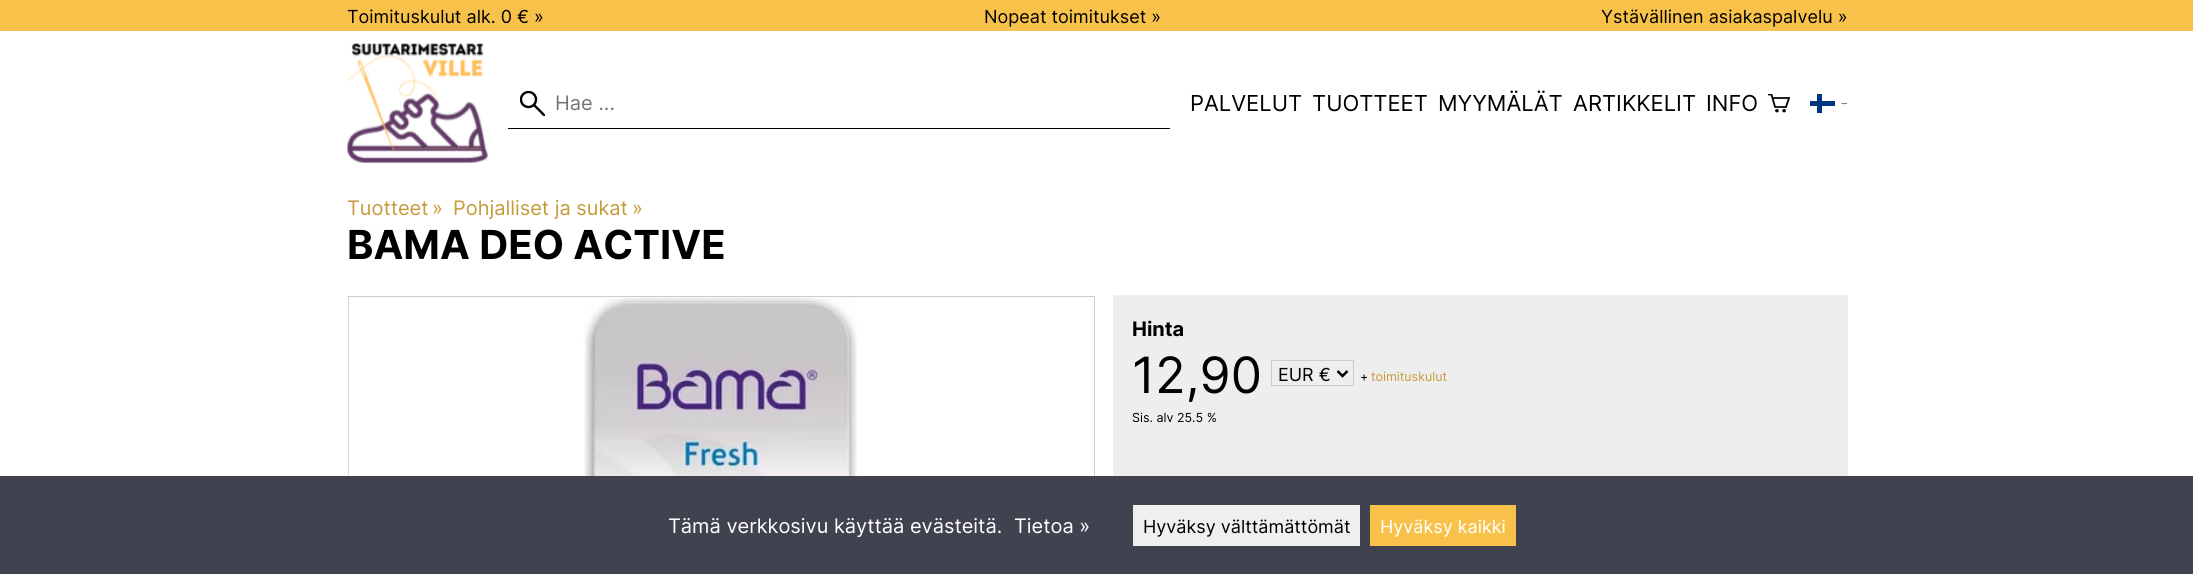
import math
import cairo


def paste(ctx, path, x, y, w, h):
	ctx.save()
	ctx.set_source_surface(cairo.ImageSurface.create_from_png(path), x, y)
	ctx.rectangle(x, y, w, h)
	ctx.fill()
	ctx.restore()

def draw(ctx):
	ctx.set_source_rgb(1, 1, 1)
	ctx.paint()
	ctx.set_source_rgb(0.969, 0.761, 0.29)
	ctx.rectangle(0, 0, 2193, 31)
	ctx.fill()
	ctx.select_font_face('Inter')
	ctx.set_font_size(18)
	ctx.set_source_rgb(0, 0, 0)
	for x, y, s in [
		(347, 23, 'Toimituskulut alk. 0 € »'),
		(984, 23, 'Nopeat toimitukset »'),
		(1601, 23, 'Ystävällinen asiakaspalvelu »'),
	]:
		ctx.move_to(x, y)
		ctx.show_text(s)
	paste(ctx, 'media/1.png', 347, 43, 142, 120)
	ctx.save()
	ctx.rectangle(520, 91, 25, 25)
	ctx.clip()
	ctx.new_path()
	ctx.move_to(544, 115)
	ctx.line_to(534, 105)
	ctx.set_line_width(2.4)
	ctx.set_line_cap(cairo.LINE_CAP_ROUND)
	ctx.stroke()
	ctx.arc(528.5, 99.5, 7.5, 0, 2 * math.pi)
	ctx.set_line_cap(cairo.LINE_CAP_BUTT)
	ctx.stroke()
	ctx.restore()
	ctx.rectangle(508, 128, 662, 1)
	ctx.fill()
	ctx.set_font_size(20)
	ctx.set_source_rgb(0.459, 0.459, 0.459)
	ctx.move_to(555, 110)
	ctx.show_text('Hae ...')
	ctx.set_font_size(22)
	ctx.set_source_rgb(0, 0, 0)
	for x, y, s in [
		(1190, 111, 'PALVELUT'),
		(1312, 111, 'TUOTTEET'),
		(1438, 111, 'MYYMÄLÄT'),
		(1573, 111, 'ARTIKKELIT'),
		(1706, 111, 'INFO'),
	]:
		ctx.move_to(x, y)
		ctx.show_text(s)
	ctx.save()
	ctx.rectangle(1768, 94, 22, 19)
	ctx.clip()
	ctx.new_path()
	ctx.move_to(1772.5, 98)
	ctx.line_to(1789, 98)
	ctx.line_to(1786, 107)
	ctx.line_to(1775, 107)
	ctx.line_to(1771.5, 94.5)
	ctx.line_to(1768.5, 94.5)
	ctx.set_line_width(1.8)
	ctx.set_line_cap(cairo.LINE_CAP_ROUND)
	ctx.stroke()
	ctx.restore()
	ctx.arc(1776.9, 110.7, 0.9, 0, 2 * math.pi)
	ctx.set_line_width(1.8)
	ctx.stroke()
	ctx.arc(1784.1, 110.7, 0.9, 0, 2 * math.pi)
	ctx.stroke()
	ctx.set_source_rgb(0, 0.208, 0.502)
	ctx.rectangle(1810, 101, 25, 5)
	ctx.fill()
	ctx.rectangle(1817, 94, 5, 19)
	ctx.fill()
	ctx.new_path()
	ctx.move_to(1841.5, 103)
	ctx.line_to(1844, 104)
	ctx.line_to(1847, 103)
	ctx.set_source_rgb(0, 0, 0)
	ctx.set_line_width(0.5)
	ctx.set_line_cap(cairo.LINE_CAP_ROUND)
	ctx.stroke()
	ctx.set_font_size(20)
	ctx.set_source_rgb(0.773, 0.608, 0.231)
	for x, y, s in [
		(347, 215, 'Tuotteet'),
		(432, 215, '»'),
		(453, 215, 'Pohjalliset ja sukat'),
		(632, 215, '»'),
	]:
		ctx.move_to(x, y)
		ctx.show_text(s)
	ctx.select_font_face('Inter', cairo.FONT_SLANT_NORMAL, cairo.FONT_WEIGHT_BOLD)
	ctx.set_font_size(40)
	ctx.set_source_rgb(0, 0, 0)
	ctx.move_to(347, 259)
	ctx.show_text('BAMA DEO ACTIVE')
	ctx.rectangle(348.5, 296.5, 746, 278)
	ctx.set_source_rgb(0.8, 0.8, 0.8)
	ctx.set_line_width(1)
	ctx.set_line_cap(cairo.LINE_CAP_BUTT)
	ctx.stroke()
	paste(ctx, 'media/2.png', 348, 297, 509, 179)
	ctx.set_source_rgb(0.933, 0.933, 0.933)
	ctx.rectangle(1113, 295, 735, 181)
	ctx.fill()
	ctx.set_font_size(20)
	ctx.set_source_rgb(0, 0, 0)
	ctx.move_to(1132, 336)
	ctx.show_text('Hinta')
	ctx.select_font_face('Inter')
	ctx.set_font_size(50)
	ctx.move_to(1132, 393)
	ctx.show_text('12,90')
	ctx.rectangle(1271.5, 360.5, 82, 25)
	ctx.set_source_rgb(0.8, 0.8, 0.8)
	ctx.stroke()
	ctx.new_path()
	ctx.move_to(1337.5, 371)
	ctx.line_to(1342.5, 376)
	ctx.line_to(1347.5, 371)
	ctx.set_source_rgb(0, 0, 0)
	ctx.set_line_width(2.5)
	ctx.stroke()
	ctx.set_font_size(18)
	ctx.move_to(1278, 381)
	ctx.show_text('EUR €')
	ctx.set_font_size(12.5)
	ctx.move_to(1360, 381)
	ctx.show_text('+')
	ctx.set_source_rgb(0.773, 0.608, 0.231)
	ctx.move_to(1371, 381)
	ctx.show_text('toimituskulut')
	ctx.set_source_rgb(0, 0, 0)
	ctx.move_to(1132, 422)
	ctx.show_text('Sis. alv 25.5 %')
	ctx.set_source_rgb(0.255, 0.259, 0.31)
	ctx.rectangle(0, 476, 2193, 98)
	ctx.fill()
	ctx.set_font_size(20)
	ctx.set_source_rgb(1, 1, 1)
	ctx.move_to(668, 533)
	ctx.show_text('Tämä verkkosivu käyttää evästeitä.')
	ctx.move_to(1014, 533)
	ctx.show_text('Tietoa »')
	ctx.set_source_rgb(0.937, 0.937, 0.937)
	ctx.rectangle(1133, 505, 227, 41)
	ctx.fill()
	ctx.set_font_size(18)
	ctx.set_source_rgb(0, 0, 0)
	ctx.move_to(1143, 533)
	ctx.show_text('Hyväksy välttämättömät')
	ctx.set_source_rgb(0.969, 0.761, 0.29)
	ctx.rectangle(1370, 505, 146, 41)
	ctx.fill()
	ctx.set_source_rgb(1, 1, 1)
	ctx.move_to(1380, 533)
	ctx.show_text('Hyväksy kaikki')


surface = cairo.ImageSurface(cairo.FORMAT_RGB24, 2193, 574)
ctx = cairo.Context(surface)
options = cairo.FontOptions()
options.set_hint_metrics(cairo.HINT_METRICS_OFF)
options.set_hint_style(cairo.HINT_STYLE_NONE)
ctx.set_font_options(options)
ctx.set_miter_limit(4)
draw(ctx)
surface.write_to_png('image.png')
